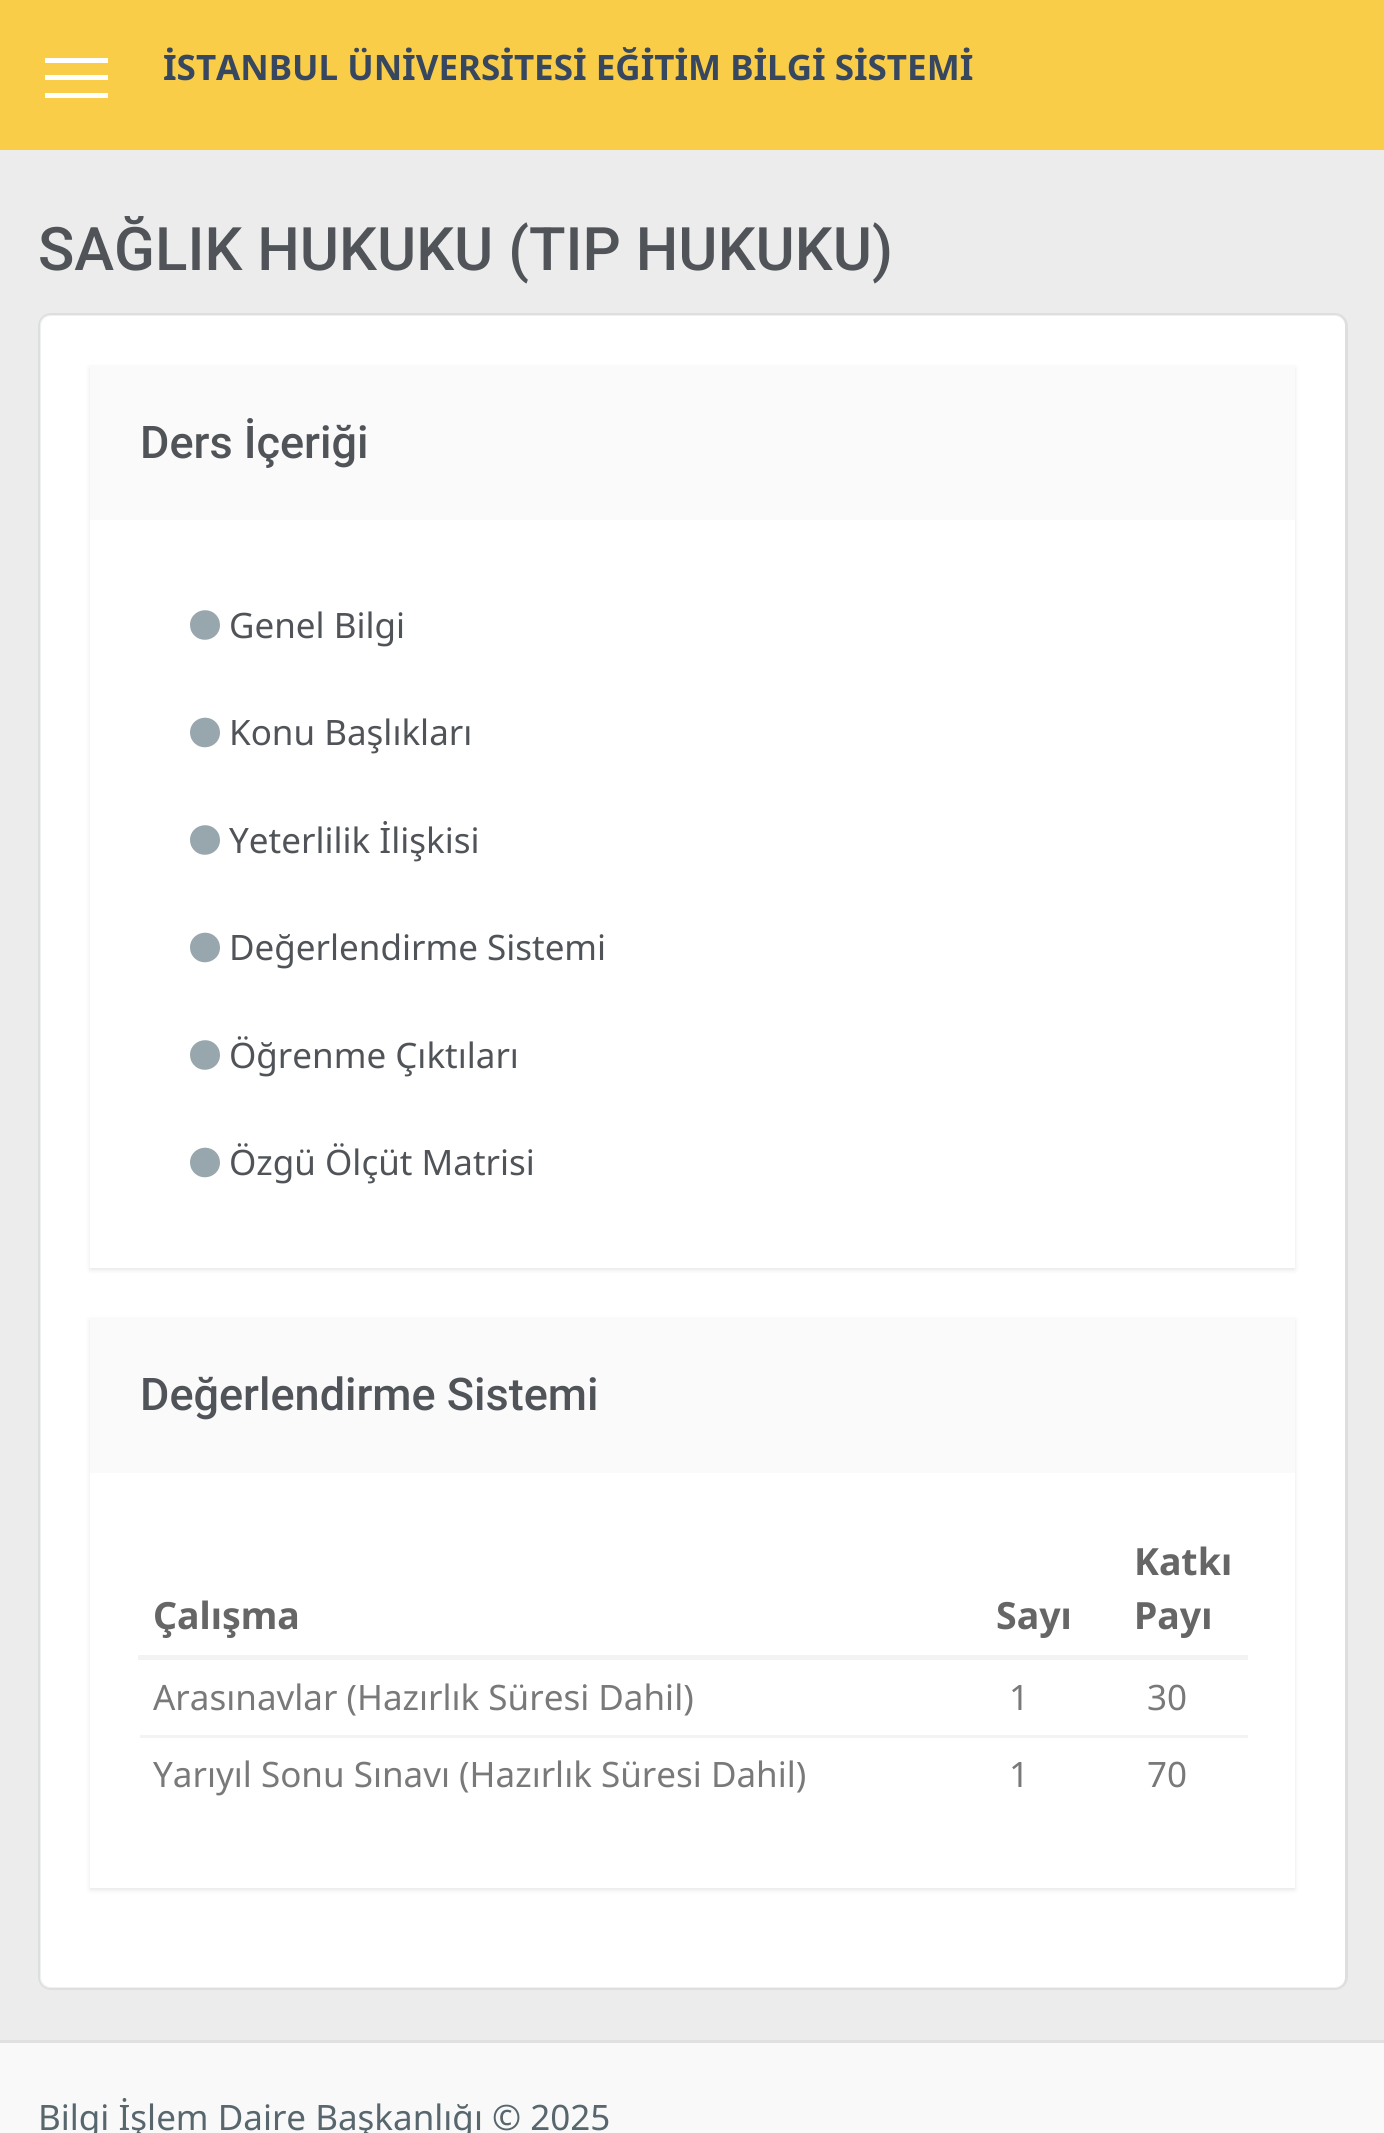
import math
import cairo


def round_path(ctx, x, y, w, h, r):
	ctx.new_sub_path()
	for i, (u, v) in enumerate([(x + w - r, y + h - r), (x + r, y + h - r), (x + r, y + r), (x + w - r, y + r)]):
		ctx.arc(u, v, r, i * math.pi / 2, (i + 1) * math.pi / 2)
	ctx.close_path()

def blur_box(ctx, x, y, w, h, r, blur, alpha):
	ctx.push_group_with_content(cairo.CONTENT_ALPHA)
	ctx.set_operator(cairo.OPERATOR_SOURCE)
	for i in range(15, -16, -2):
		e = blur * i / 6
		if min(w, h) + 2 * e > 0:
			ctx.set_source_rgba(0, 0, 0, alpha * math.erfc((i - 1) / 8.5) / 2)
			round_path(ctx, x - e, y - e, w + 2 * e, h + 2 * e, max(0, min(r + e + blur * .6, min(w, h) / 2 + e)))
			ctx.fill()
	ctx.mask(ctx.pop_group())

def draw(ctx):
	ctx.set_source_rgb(0.925, 0.925, 0.925)
	ctx.paint()
	ctx.set_source_rgb(0.976, 0.804, 0.282)
	ctx.rectangle(0, 0, 1384, 150)
	ctx.fill()
	ctx.set_source_rgb(1, 1, 1)
	ctx.rectangle(45, 58, 63, 5)
	ctx.rectangle(45, 75, 63, 5)
	ctx.rectangle(45, 93, 63, 5)
	ctx.fill()
	ctx.select_font_face('Noto Sans', cairo.FONT_SLANT_NORMAL, cairo.FONT_WEIGHT_BOLD)
	ctx.set_font_size(35)
	ctx.set_source_rgb(0.216, 0.278, 0.376)
	ctx.move_to(163, 80)
	ctx.show_text('İSTANBUL ÜNİVERSİTESİ EĞİTİM BİLGİ SİSTEMİ')
	ctx.select_font_face('Roboto Medium')
	ctx.set_font_size(60)
	ctx.set_source_rgb(0.314, 0.329, 0.345)
	ctx.move_to(38, 270)
	ctx.show_text('SAĞLIK HUKUKU (TIP HUKUKU)')
	ctx.set_source_rgb(1, 1, 1)
	round_path(ctx, 40, 315, 1305, 1673, 10)
	ctx.fill()
	round_path(ctx, 39.5, 314.5, 1307, 1674, 11.5)
	ctx.set_source_rgba(0.212, 0.251, 0.29, 0.08)
	ctx.set_line_width(3)
	ctx.stroke()
	ctx.set_source_rgb(0, 0, 0)
	blur_box(ctx, 90, 368, 1205, 902, 0, 2.5, 0.1)
	ctx.set_source_rgb(1, 1, 1)
	ctx.rectangle(90, 520, 1205, 748)
	ctx.fill()
	ctx.set_source_rgb(0.98, 0.98, 0.98)
	ctx.rectangle(90, 365, 1205, 155)
	ctx.fill()
	ctx.set_font_size(45)
	ctx.set_source_rgb(0.314, 0.329, 0.345)
	ctx.move_to(140, 458)
	ctx.show_text('Ders İçeriği')
	ctx.set_source_rgb(0.596, 0.651, 0.678)
	ctx.new_path()
	ctx.move_to(218, 617.5)
	ctx.curve_to(219.5, 620, 220, 623, 220, 626)
	ctx.curve_to(219, 640.5, 199.5, 645, 192, 632.5)
	ctx.curve_to(190.5, 630, 190, 627, 190, 624)
	ctx.curve_to(191, 609.5, 210.5, 605, 218, 617.5)
	ctx.close_path()
	ctx.fill()
	ctx.select_font_face('Noto Sans')
	ctx.set_font_size(35)
	ctx.set_source_rgb(0.314, 0.329, 0.345)
	ctx.move_to(229, 638)
	ctx.show_text('Genel Bilgi')
	ctx.set_source_rgb(0.596, 0.651, 0.678)
	ctx.new_path()
	ctx.move_to(218, 725)
	ctx.curve_to(219.5, 727.5, 220, 730.5, 220, 733.5)
	ctx.curve_to(219, 748, 199.5, 752.5, 192, 740)
	ctx.curve_to(190.5, 737.5, 190, 734.5, 190, 731.5)
	ctx.curve_to(191, 717, 210.5, 712.5, 218, 725)
	ctx.close_path()
	ctx.fill()
	ctx.set_source_rgb(0.314, 0.329, 0.345)
	ctx.move_to(229, 745)
	ctx.show_text('Konu Başlıkları')
	ctx.set_source_rgb(0.596, 0.651, 0.678)
	ctx.new_path()
	ctx.move_to(218, 832.5)
	ctx.curve_to(219.5, 835, 220, 838, 220, 841)
	ctx.curve_to(219, 855.5, 199.5, 860, 192, 847.5)
	ctx.curve_to(190.5, 845, 190, 842, 190, 839)
	ctx.curve_to(191, 824.5, 210.5, 820, 218, 832.5)
	ctx.close_path()
	ctx.fill()
	ctx.set_source_rgb(0.314, 0.329, 0.345)
	ctx.move_to(229, 853)
	ctx.show_text('Yeterlilik İlişkisi')
	ctx.set_source_rgb(0.596, 0.651, 0.678)
	ctx.new_path()
	ctx.move_to(218, 940)
	ctx.curve_to(219.5, 942.5, 220, 945.5, 220, 948.5)
	ctx.curve_to(219, 963, 199.5, 967.5, 192, 955)
	ctx.curve_to(190.5, 952.5, 190, 949.5, 190, 946.5)
	ctx.curve_to(191, 932, 210.5, 927.5, 218, 940)
	ctx.close_path()
	ctx.fill()
	ctx.set_source_rgb(0.314, 0.329, 0.345)
	ctx.move_to(229, 960)
	ctx.show_text('Değerlendirme Sistemi')
	ctx.set_source_rgb(0.596, 0.651, 0.678)
	ctx.new_path()
	ctx.move_to(218, 1047.5)
	ctx.curve_to(219.5, 1050, 220, 1053, 220, 1056)
	ctx.curve_to(219, 1070.5, 199.5, 1075, 192, 1062.5)
	ctx.curve_to(190.5, 1060, 190, 1057, 190, 1054)
	ctx.curve_to(191, 1039.5, 210.5, 1035, 218, 1047.5)
	ctx.close_path()
	ctx.fill()
	ctx.set_source_rgb(0.314, 0.329, 0.345)
	ctx.move_to(229, 1068)
	ctx.show_text('Öğrenme Çıktıları')
	ctx.set_source_rgb(0.596, 0.651, 0.678)
	ctx.new_path()
	ctx.move_to(218, 1155)
	ctx.curve_to(219.5, 1157.5, 220, 1160.5, 220, 1163.5)
	ctx.curve_to(219, 1178, 199.5, 1182.5, 192, 1170)
	ctx.curve_to(190.5, 1167.5, 190, 1164.5, 190, 1161.5)
	ctx.curve_to(191, 1147, 210.5, 1142.5, 218, 1155)
	ctx.close_path()
	ctx.fill()
	ctx.set_source_rgb(0.314, 0.329, 0.345)
	ctx.move_to(229, 1175)
	ctx.show_text('Özgü Ölçüt Matrisi')
	ctx.set_source_rgb(0, 0, 0)
	blur_box(ctx, 90, 1320, 1205, 570, 0, 2.5, 0.1)
	ctx.set_source_rgb(1, 1, 1)
	ctx.rectangle(90, 1473, 1205, 415)
	ctx.fill()
	ctx.set_source_rgb(0.98, 0.98, 0.98)
	ctx.rectangle(90, 1319, 1205, 154)
	ctx.fill()
	ctx.select_font_face('Roboto Medium')
	ctx.set_font_size(45)
	ctx.set_source_rgb(0.314, 0.329, 0.345)
	ctx.move_to(140, 1410)
	ctx.show_text('Değerlendirme Sistemi')
	ctx.select_font_face('Noto Sans', cairo.FONT_SLANT_NORMAL, cairo.FONT_WEIGHT_BOLD)
	ctx.set_font_size(37.5)
	ctx.set_source_rgb(0.4, 0.4, 0.4)
	ctx.move_to(153, 1629)
	ctx.show_text('Çalışma')
	ctx.move_to(996, 1629)
	ctx.show_text('Sayı')
	ctx.set_source_rgb(0.953, 0.953, 0.953)
	ctx.rectangle(138, 1655, 1110, 5)
	ctx.fill()
	ctx.set_source_rgb(0.4, 0.4, 0.4)
	ctx.move_to(1134, 1575)
	ctx.show_text('Katkı')
	ctx.move_to(1134, 1629)
	ctx.show_text('Payı')
	ctx.select_font_face('Noto Sans')
	ctx.set_font_size(35)
	ctx.set_source_rgb(0.475, 0.475, 0.475)
	for x, y, s in [
		(153, 1710, 'Arasınavlar (Hazırlık Süresi Dahil)'),
		(1009, 1710, '1'),
		(1147, 1710, '30'),
		(153, 1787, 'Yarıyıl Sonu Sınavı (Hazırlık Süresi Dahil)'),
		(1009, 1787, '1'),
	]:
		ctx.move_to(x, y)
		ctx.show_text(s)
	ctx.set_source_rgb(0.953, 0.953, 0.953)
	ctx.rectangle(140, 1735, 1108, 3)
	ctx.fill()
	ctx.set_source_rgb(0.475, 0.475, 0.475)
	ctx.move_to(1147, 1787)
	ctx.show_text('70')
	ctx.set_source_rgb(0.976, 0.976, 0.976)
	ctx.rectangle(0, 2043, 1384, 90)
	ctx.fill()
	ctx.set_source_rgb(0.878, 0.878, 0.878)
	ctx.rectangle(0, 2040, 1384, 3)
	ctx.fill()
	ctx.set_source_rgb(0.345, 0.4, 0.431)
	ctx.move_to(38, 2130)
	ctx.show_text('Bilgi İşlem Daire Başkanlığı © 2025')


surface = cairo.ImageSurface(cairo.FORMAT_RGB24, 1384, 2133)
ctx = cairo.Context(surface)
options = cairo.FontOptions()
options.set_hint_metrics(cairo.HINT_METRICS_OFF)
options.set_hint_style(cairo.HINT_STYLE_NONE)
ctx.set_font_options(options)
ctx.set_miter_limit(4)
draw(ctx)
surface.write_to_png('image.png')
